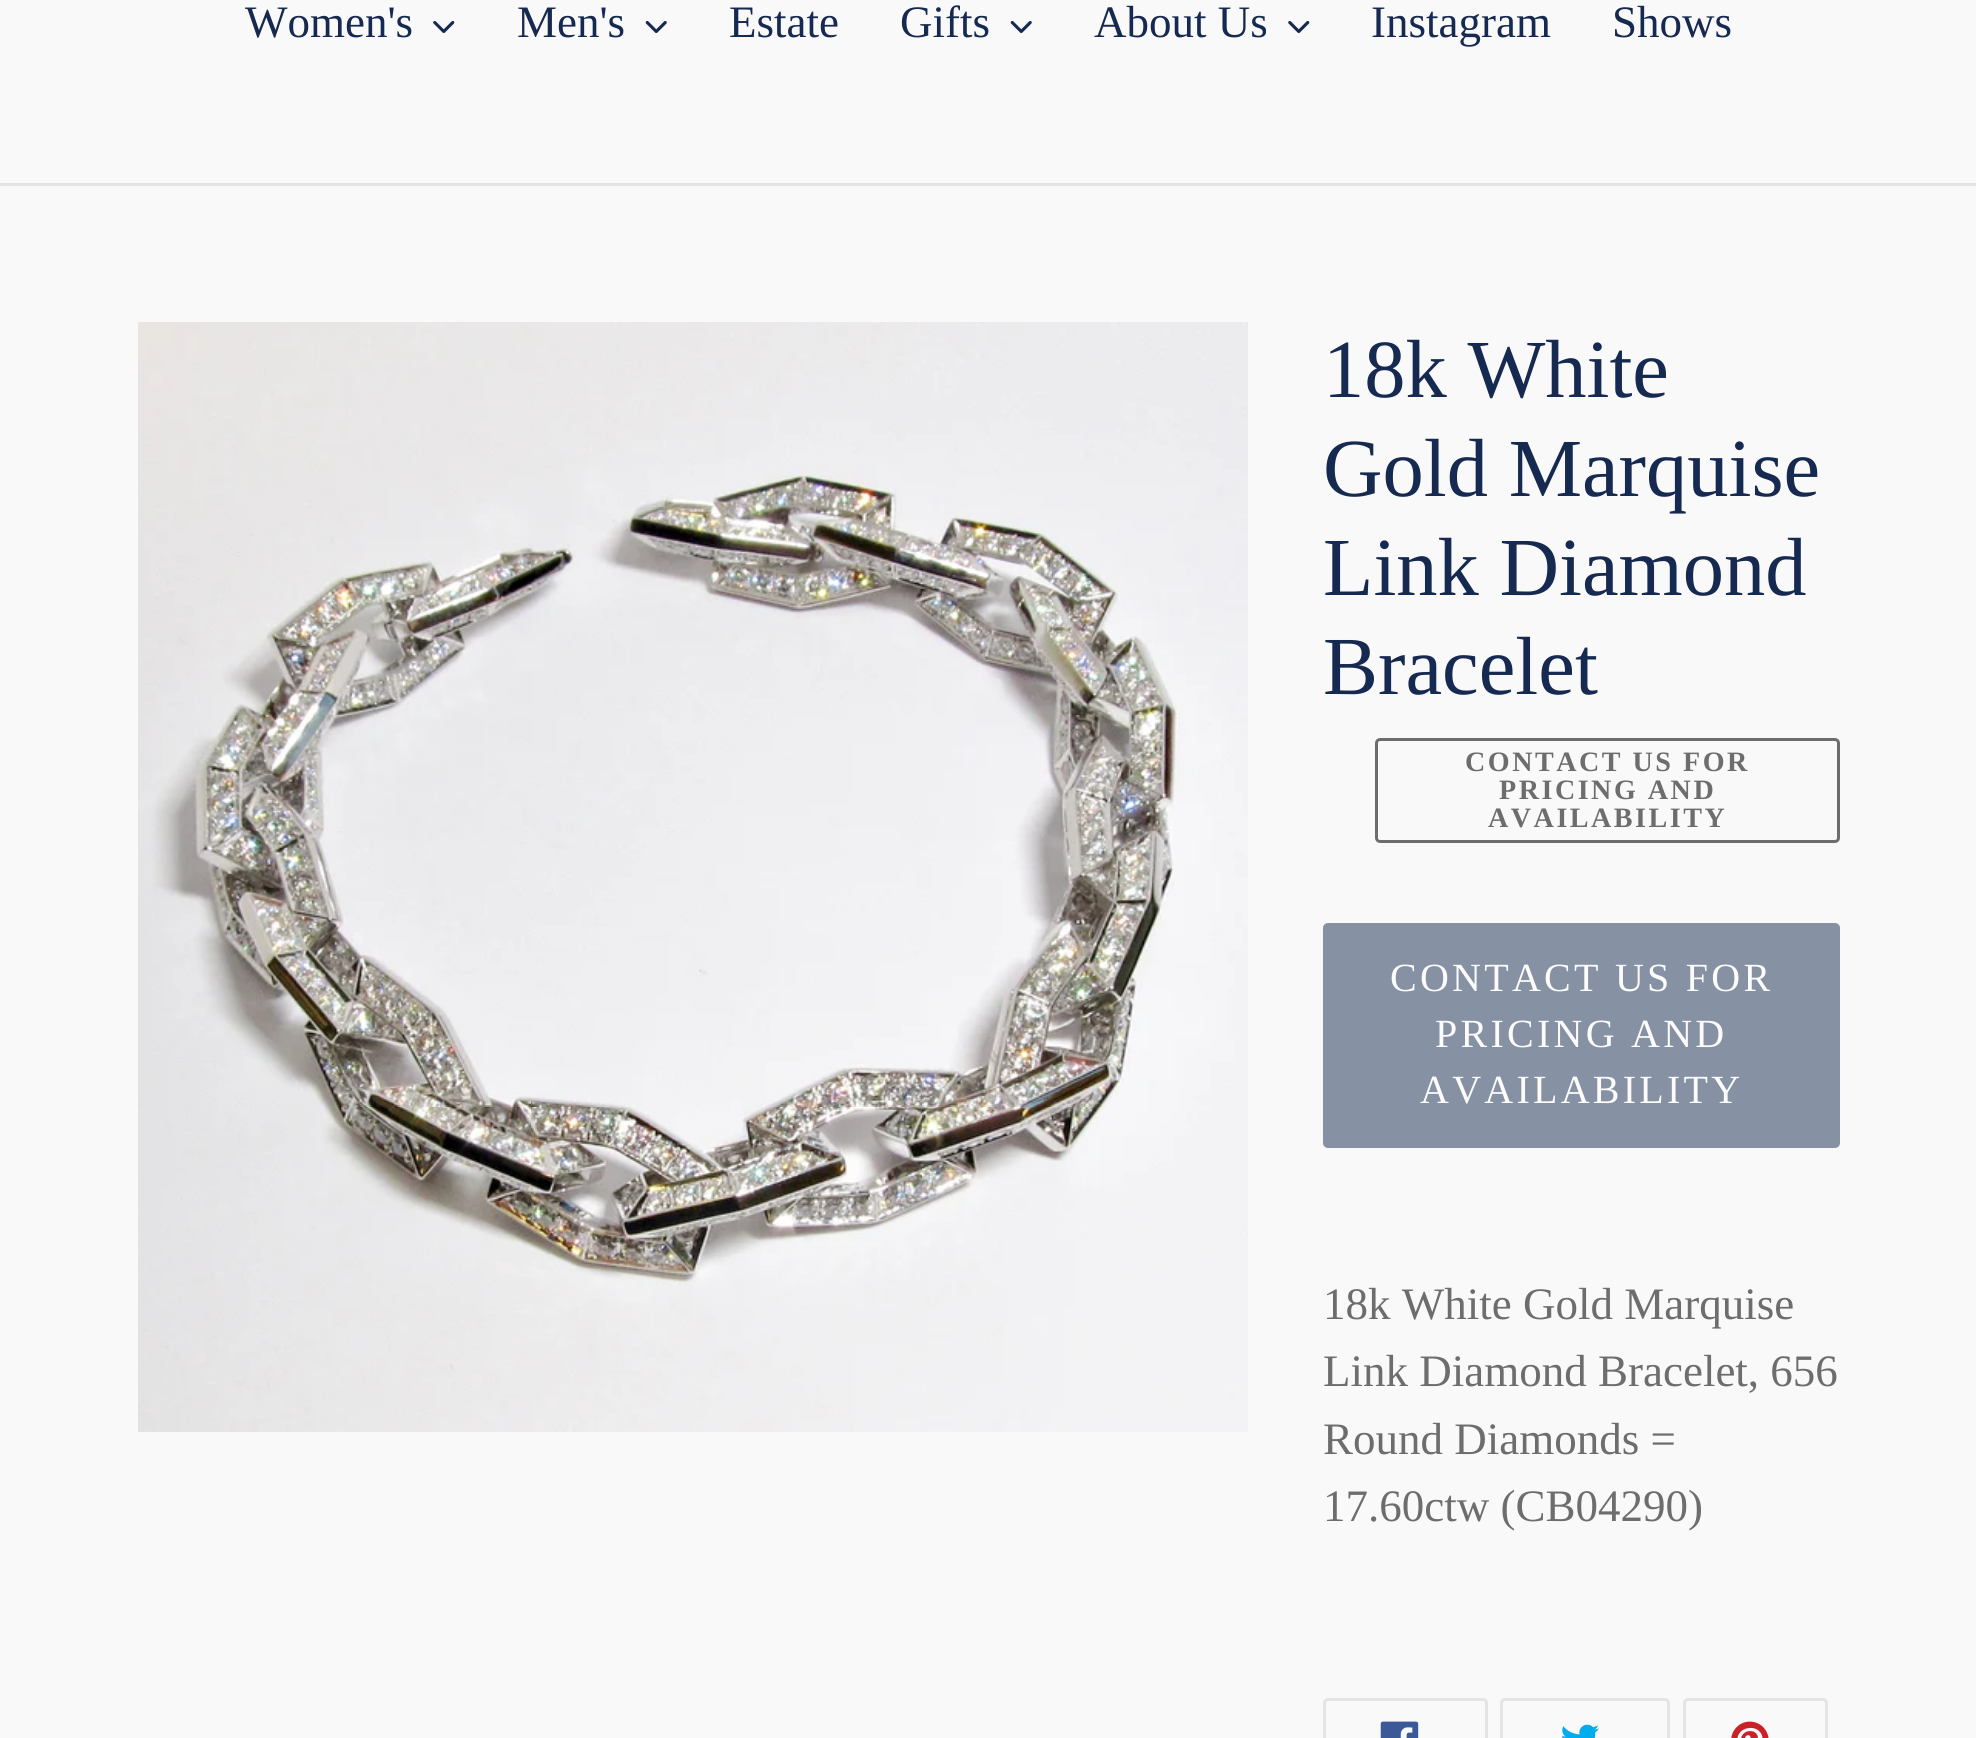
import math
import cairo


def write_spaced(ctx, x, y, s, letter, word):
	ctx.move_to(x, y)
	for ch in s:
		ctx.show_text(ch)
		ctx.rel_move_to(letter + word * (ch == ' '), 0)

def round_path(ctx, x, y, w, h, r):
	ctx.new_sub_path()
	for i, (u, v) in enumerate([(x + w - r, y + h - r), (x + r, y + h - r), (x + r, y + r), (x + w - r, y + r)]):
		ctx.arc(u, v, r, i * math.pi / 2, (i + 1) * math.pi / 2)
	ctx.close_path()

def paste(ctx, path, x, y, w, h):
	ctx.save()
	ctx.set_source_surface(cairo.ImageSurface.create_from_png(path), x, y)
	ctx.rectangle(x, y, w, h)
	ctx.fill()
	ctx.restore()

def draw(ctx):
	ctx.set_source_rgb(0.973, 0.973, 0.973)
	ctx.paint()
	ctx.set_source_rgb(0.894, 0.894, 0.894)
	ctx.rectangle(0, 183, 1976, 3)
	ctx.fill()
	ctx.select_font_face('Liberation Serif')
	ctx.set_font_size(45)
	ctx.set_source_rgb(0.086, 0.161, 0.314)
	ctx.move_to(245, 37)
	ctx.show_text('Women\'s')
	paste(ctx, 'media/1.png', 433, 21, 22, 12)
	ctx.move_to(517, 37)
	ctx.show_text('Men\'s')
	paste(ctx, 'media/2.png', 645, 21, 22, 12)
	ctx.move_to(729, 37)
	ctx.show_text('Estate')
	ctx.move_to(900, 37)
	ctx.show_text('Gifts')
	paste(ctx, 'media/2.png', 1010, 21, 22, 12)
	ctx.move_to(1094, 37)
	ctx.show_text('About Us')
	paste(ctx, 'media/1.png', 1288, 21, 22, 12)
	ctx.move_to(1371, 37)
	ctx.show_text('Instagram')
	ctx.move_to(1612, 37)
	ctx.show_text('Shows')
	paste(ctx, 'media/3.png', 138, 322, 1110, 1110)
	ctx.set_font_size(82.5)
	for x, y, s in [
		(1323, 397, '18k White'),
		(1323, 496, 'Gold Marquise'),
		(1323, 595, 'Link Diamond'),
		(1323, 694, 'Bracelet'),
	]:
		ctx.move_to(x, y)
		ctx.show_text(s)
	round_path(ctx, 1376.5, 739.5, 462, 102, 3.5)
	ctx.set_source_rgb(0.427, 0.427, 0.427)
	ctx.set_line_width(3)
	ctx.stroke()
	ctx.select_font_face('Liberation Serif', cairo.FONT_SLANT_NORMAL, cairo.FONT_WEIGHT_BOLD)
	ctx.set_font_size(28.1)
	for x, y, s in [
		(1465, 771, 'CONTACT US FOR'),
		(1499, 799, 'PRICING AND'),
		(1488, 827, 'AVAILABILITY'),
	]:
		write_spaced(ctx, x, y, s, 2.5, 0)
	ctx.set_source_rgb(0.529, 0.569, 0.643)
	round_path(ctx, 1323, 923, 517, 225, 5)
	ctx.fill()
	ctx.select_font_face('Liberation Serif')
	ctx.set_font_size(40)
	ctx.set_source_rgb(0.988, 0.988, 0.988)
	for x, y, s in [
		(1390, 991, 'CONTACT US FOR'),
		(1435, 1047, 'PRICING AND'),
		(1420, 1103, 'AVAILABILITY'),
	]:
		write_spaced(ctx, x, y, s, 3.25, 0)
	ctx.set_font_size(45)
	ctx.set_source_rgb(0.427, 0.427, 0.427)
	for x, y, s in [
		(1323, 1319, '18k White Gold Marquise'),
		(1323, 1386, 'Link Diamond Bracelet, 656'),
		(1323, 1454, 'Round Diamonds ='),
		(1323, 1521, '17.60ctw (CB04290)'),
	]:
		ctx.move_to(x, y)
		ctx.show_text(s)
	round_path(ctx, 1324.5, 1699.5, 162, 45, 3.5)
	ctx.set_source_rgb(0.894, 0.894, 0.894)
	ctx.stroke()
	paste(ctx, 'media/4.png', 1380, 1721, 39, 17)
	round_path(ctx, 1501.5, 1699.5, 167, 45, 3.5)
	ctx.stroke()
	paste(ctx, 'media/5.png', 1562, 1724, 37, 14)
	round_path(ctx, 1684.5, 1699.5, 142, 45, 3.5)
	ctx.stroke()
	paste(ctx, 'media/6.png', 1731, 1721, 38, 17)


surface = cairo.ImageSurface(cairo.FORMAT_RGB24, 1976, 1738)
ctx = cairo.Context(surface)
options = cairo.FontOptions()
options.set_hint_metrics(cairo.HINT_METRICS_OFF)
options.set_hint_style(cairo.HINT_STYLE_NONE)
ctx.set_font_options(options)
ctx.set_miter_limit(4)
draw(ctx)
surface.write_to_png('image.png')
